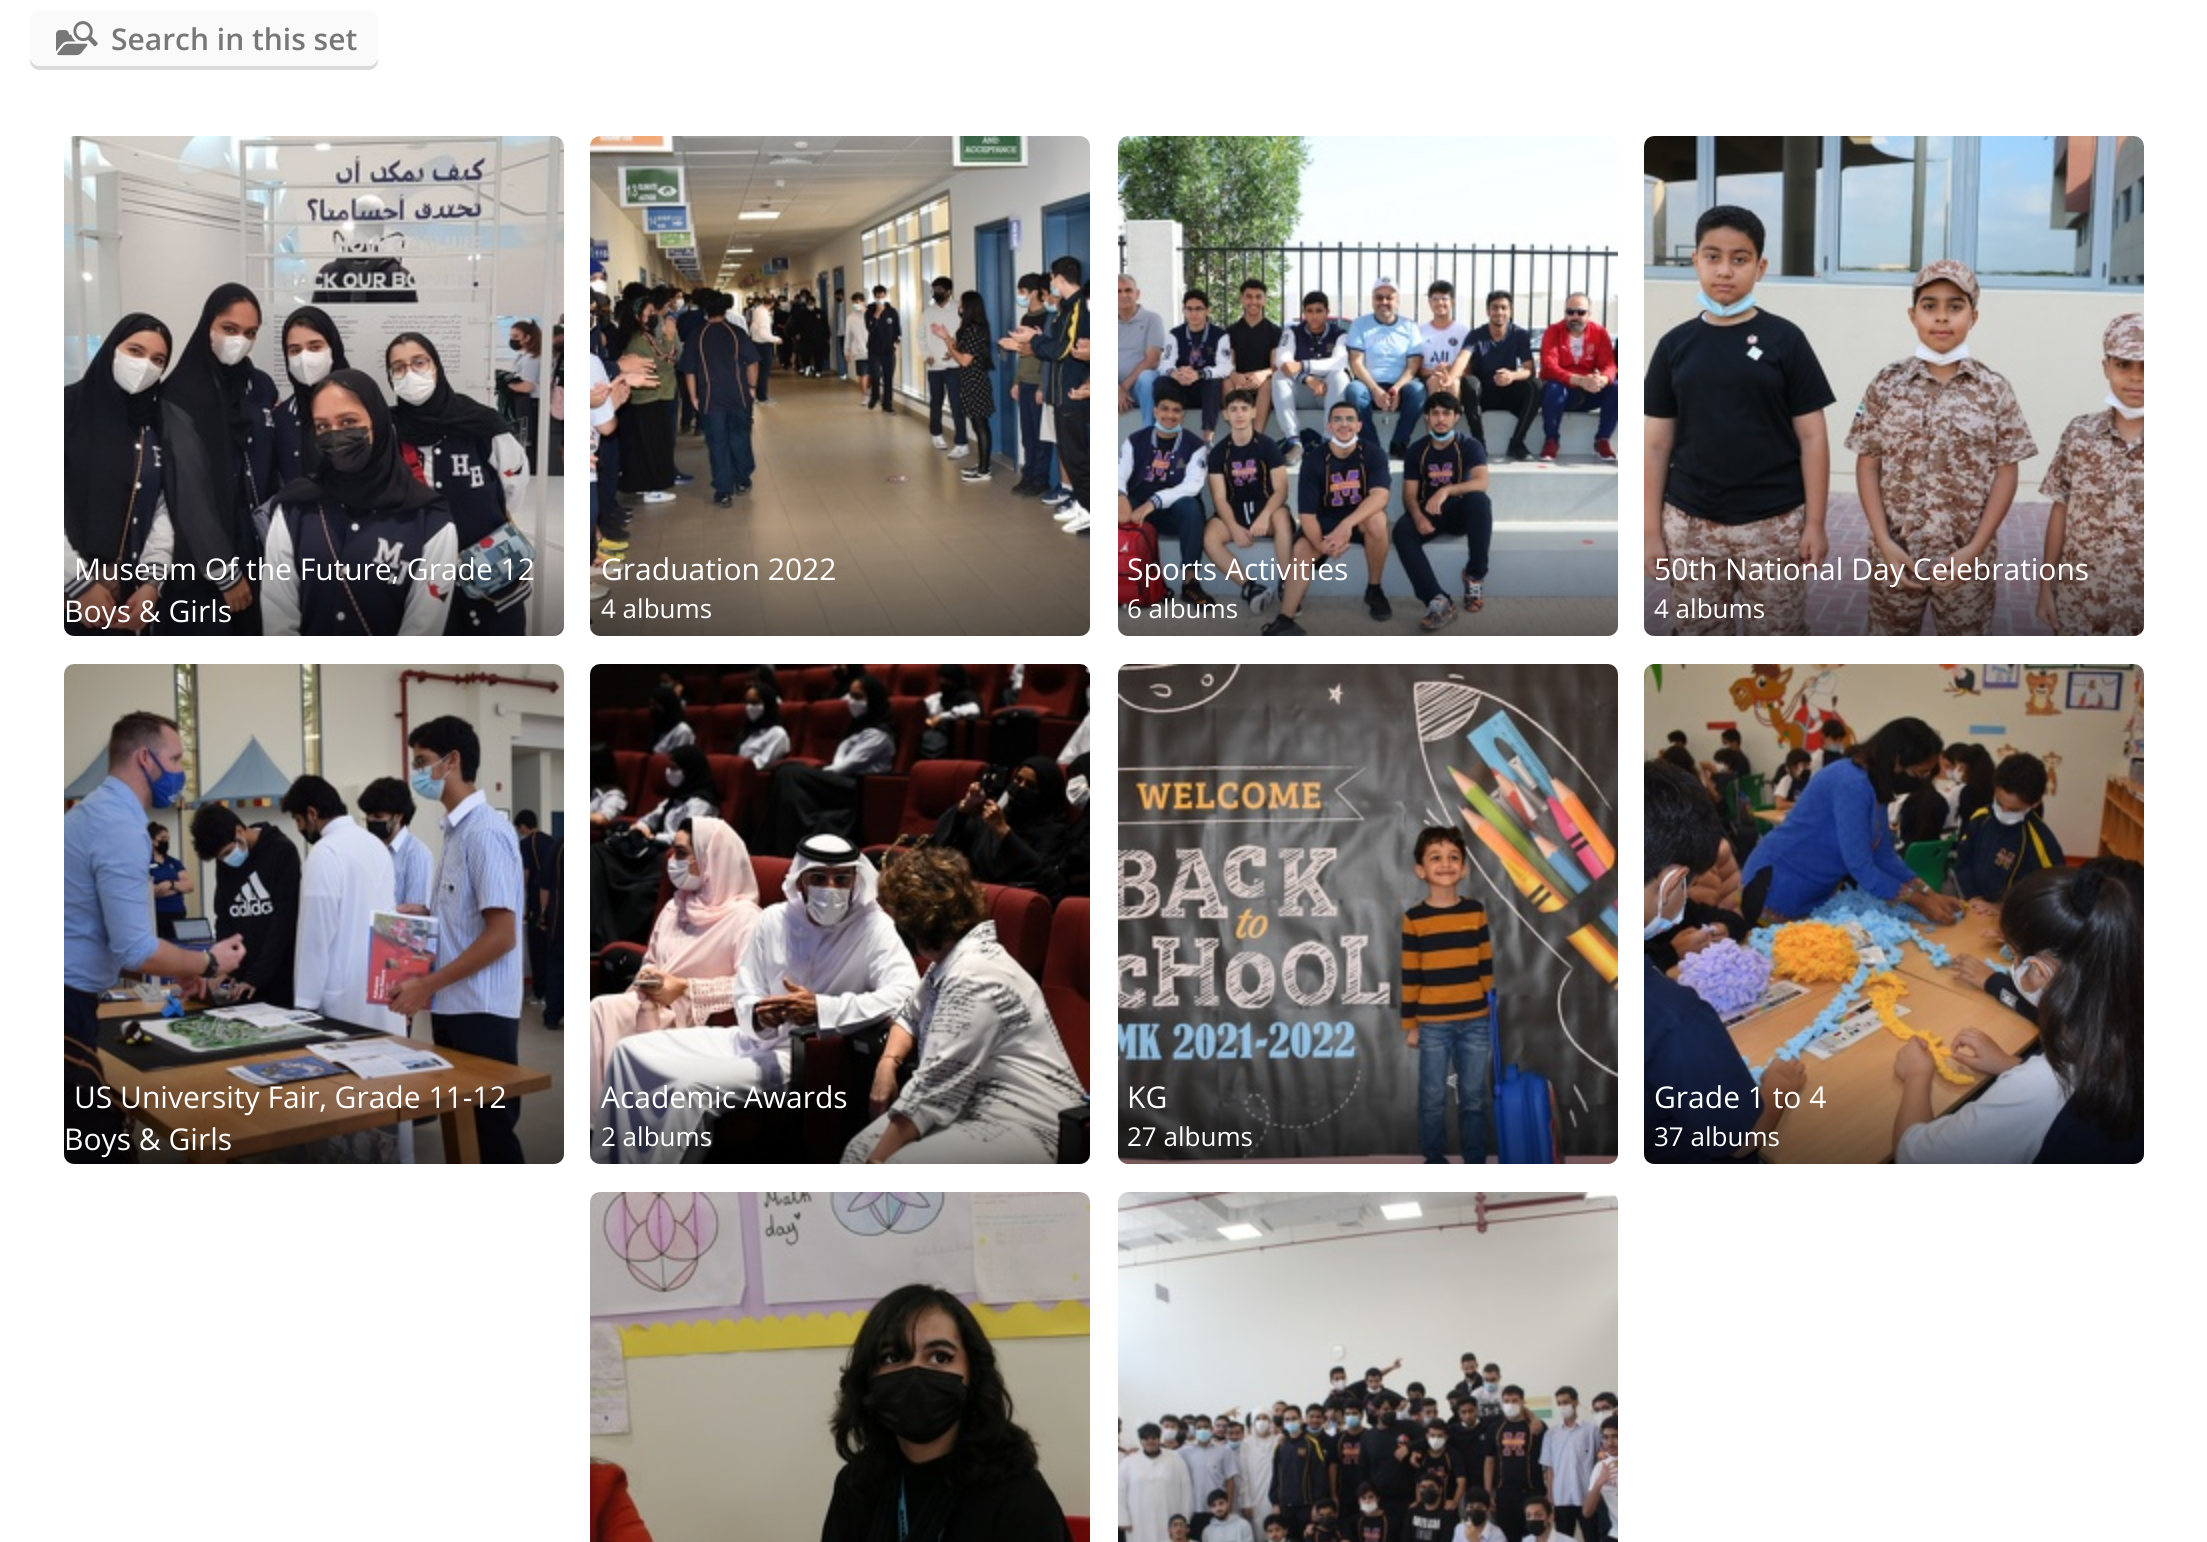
import math
import cairo


def round_path(ctx, x, y, w, h, r):
	ctx.new_sub_path()
	for i, (u, v) in enumerate([(x + w - r, y + h - r), (x + r, y + h - r), (x + r, y + r), (x + w - r, y + r)]):
		ctx.arc(u, v, r, i * math.pi / 2, (i + 1) * math.pi / 2)
	ctx.close_path()

def paste(ctx, path, x, y, w, h):
	ctx.save()
	ctx.set_source_surface(cairo.ImageSurface.create_from_png(path), x, y)
	ctx.rectangle(x, y, w, h)
	ctx.fill()
	ctx.restore()

def draw(ctx):
	ctx.set_source_rgb(1, 1, 1)
	ctx.paint()
	ctx.set_source_rgb(0.859, 0.859, 0.859)
	ctx.new_path()
	ctx.move_to(30, 56)
	ctx.line_to(30, 60)
	ctx.curve_to(30, 66, 34, 70, 40, 70)
	ctx.line_to(368, 70)
	ctx.curve_to(374, 70, 378, 66, 378, 60)
	ctx.line_to(378, 56)
	ctx.curve_to(378, 62, 374, 66, 368, 66)
	ctx.line_to(40, 66)
	ctx.curve_to(34, 66, 30, 62, 30, 56)
	ctx.close_path()
	ctx.fill()
	ctx.set_source_rgb(0.98, 0.98, 0.98)
	round_path(ctx, 30, 10, 348, 56, 10)
	ctx.fill()
	paste(ctx, 'media/1.png', 56, 21, 42, 35)
	ctx.select_font_face('Open Sans SemiBold')
	ctx.set_font_size(30)
	ctx.set_source_rgb(0.467, 0.467, 0.467)
	ctx.move_to(111, 50)
	ctx.show_text('Search in this set')
	paste(ctx, 'media/2.png', 64, 136, 500, 500)
	gradient = cairo.LinearGradient(314, 528, 314, 638)
	gradient.add_color_stop_rgba(0, 0, 0, 0, 0.01)
	gradient.add_color_stop_rgba(1, 0, 0, 0, 0.5)
	ctx.set_source(gradient)
	ctx.new_path()
	ctx.move_to(64, 528)
	ctx.line_to(564, 528)
	ctx.line_to(564, 626)
	ctx.curve_to(564, 631.5, 559.5, 636, 554, 636)
	ctx.line_to(74, 636)
	ctx.curve_to(68.5, 636, 64, 631.5, 64, 626)
	ctx.close_path()
	ctx.fill()
	ctx.select_font_face('Open Sans')
	ctx.set_source_rgb(1, 1, 1)
	ctx.move_to(74, 580)
	ctx.show_text('Museum Of the Future, Grade 12')
	ctx.move_to(64, 622)
	ctx.show_text('Boys & Girls')
	paste(ctx, 'media/3.png', 590, 136, 500, 500)
	gradient = cairo.LinearGradient(840, 528, 840, 638)
	gradient.add_color_stop_rgba(0, 0, 0, 0, 0.01)
	gradient.add_color_stop_rgba(1, 0, 0, 0, 0.5)
	ctx.set_source(gradient)
	ctx.new_path()
	ctx.move_to(590, 528)
	ctx.line_to(1090, 528)
	ctx.line_to(1090, 626)
	ctx.curve_to(1090, 631.5, 1085.5, 636, 1080, 636)
	ctx.line_to(600, 636)
	ctx.curve_to(594.5, 636, 590, 631.5, 590, 626)
	ctx.close_path()
	ctx.fill()
	ctx.set_source_rgb(1, 1, 1)
	ctx.move_to(601, 580)
	ctx.show_text('Graduation 2022')
	ctx.set_font_size(26)
	ctx.move_to(601, 618)
	ctx.show_text('4 albums')
	paste(ctx, 'media/4.png', 1118, 136, 500, 500)
	gradient = cairo.LinearGradient(1368, 528, 1368, 638)
	gradient.add_color_stop_rgba(0, 0, 0, 0, 0.01)
	gradient.add_color_stop_rgba(1, 0, 0, 0, 0.5)
	ctx.set_source(gradient)
	ctx.new_path()
	ctx.move_to(1118, 528)
	ctx.line_to(1618, 528)
	ctx.line_to(1618, 626)
	ctx.curve_to(1618, 631.5, 1613.5, 636, 1608, 636)
	ctx.line_to(1128, 636)
	ctx.curve_to(1122.5, 636, 1118, 631.5, 1118, 626)
	ctx.close_path()
	ctx.fill()
	ctx.set_font_size(30)
	ctx.set_source_rgb(1, 1, 1)
	ctx.move_to(1127, 580)
	ctx.show_text('Sports Activities')
	ctx.set_font_size(26)
	ctx.move_to(1127, 618)
	ctx.show_text('6 albums')
	paste(ctx, 'media/5.png', 1644, 136, 500, 500)
	gradient = cairo.LinearGradient(1894, 528, 1894, 638)
	gradient.add_color_stop_rgba(0, 0, 0, 0, 0.01)
	gradient.add_color_stop_rgba(1, 0, 0, 0, 0.5)
	ctx.set_source(gradient)
	ctx.new_path()
	ctx.move_to(1644, 528)
	ctx.line_to(2144, 528)
	ctx.line_to(2144, 626)
	ctx.curve_to(2144, 631.5, 2139.5, 636, 2134, 636)
	ctx.line_to(1654, 636)
	ctx.curve_to(1648.5, 636, 1644, 631.5, 1644, 626)
	ctx.close_path()
	ctx.fill()
	ctx.set_font_size(30)
	ctx.set_source_rgb(1, 1, 1)
	ctx.move_to(1654, 580)
	ctx.show_text('50th National Day Celebrations')
	ctx.set_font_size(26)
	ctx.move_to(1654, 618)
	ctx.show_text('4 albums')
	paste(ctx, 'media/6.png', 64, 664, 500, 500)
	gradient = cairo.LinearGradient(314, 1056, 314, 1166)
	gradient.add_color_stop_rgba(0, 0, 0, 0, 0.01)
	gradient.add_color_stop_rgba(1, 0, 0, 0, 0.5)
	ctx.set_source(gradient)
	ctx.new_path()
	ctx.move_to(64, 1056)
	ctx.line_to(564, 1056)
	ctx.line_to(564, 1154)
	ctx.curve_to(564, 1159.5, 559.5, 1164, 554, 1164)
	ctx.line_to(74, 1164)
	ctx.curve_to(68.5, 1164, 64, 1159.5, 64, 1154)
	ctx.close_path()
	ctx.fill()
	ctx.set_font_size(30)
	ctx.set_source_rgb(1, 1, 1)
	ctx.move_to(74, 1108)
	ctx.show_text('US University Fair, Grade 11-12')
	ctx.move_to(64, 1150)
	ctx.show_text('Boys & Girls')
	paste(ctx, 'media/7.png', 590, 664, 500, 500)
	gradient = cairo.LinearGradient(840, 1056, 840, 1166)
	gradient.add_color_stop_rgba(0, 0, 0, 0, 0.01)
	gradient.add_color_stop_rgba(1, 0, 0, 0, 0.5)
	ctx.set_source(gradient)
	ctx.new_path()
	ctx.move_to(590, 1056)
	ctx.line_to(1090, 1056)
	ctx.line_to(1090, 1154)
	ctx.curve_to(1090, 1159.5, 1085.5, 1164, 1080, 1164)
	ctx.line_to(600, 1164)
	ctx.curve_to(594.5, 1164, 590, 1159.5, 590, 1154)
	ctx.close_path()
	ctx.fill()
	ctx.set_source_rgb(1, 1, 1)
	ctx.move_to(601, 1108)
	ctx.show_text('Academic Awards')
	ctx.set_font_size(26)
	ctx.move_to(601, 1146)
	ctx.show_text('2 albums')
	paste(ctx, 'media/8.png', 1118, 664, 500, 500)
	gradient = cairo.LinearGradient(1368, 1056, 1368, 1166)
	gradient.add_color_stop_rgba(0, 0, 0, 0, 0.01)
	gradient.add_color_stop_rgba(1, 0, 0, 0, 0.5)
	ctx.set_source(gradient)
	ctx.new_path()
	ctx.move_to(1118, 1056)
	ctx.line_to(1618, 1056)
	ctx.line_to(1618, 1154)
	ctx.curve_to(1618, 1159.5, 1613.5, 1164, 1608, 1164)
	ctx.line_to(1128, 1164)
	ctx.curve_to(1122.5, 1164, 1118, 1159.5, 1118, 1154)
	ctx.close_path()
	ctx.fill()
	ctx.set_font_size(30)
	ctx.set_source_rgb(1, 1, 1)
	ctx.move_to(1127, 1108)
	ctx.show_text('KG')
	ctx.set_font_size(26)
	ctx.move_to(1127, 1146)
	ctx.show_text('27 albums')
	paste(ctx, 'media/9.png', 1644, 664, 500, 500)
	gradient = cairo.LinearGradient(1894, 1056, 1894, 1166)
	gradient.add_color_stop_rgba(0, 0, 0, 0, 0.01)
	gradient.add_color_stop_rgba(1, 0, 0, 0, 0.5)
	ctx.set_source(gradient)
	ctx.new_path()
	ctx.move_to(1644, 1056)
	ctx.line_to(2144, 1056)
	ctx.line_to(2144, 1154)
	ctx.curve_to(2144, 1159.5, 2139.5, 1164, 2134, 1164)
	ctx.line_to(1654, 1164)
	ctx.curve_to(1648.5, 1164, 1644, 1159.5, 1644, 1154)
	ctx.close_path()
	ctx.fill()
	ctx.set_font_size(30)
	ctx.set_source_rgb(1, 1, 1)
	ctx.move_to(1654, 1108)
	ctx.show_text('Grade 1 to 4')
	ctx.set_font_size(26)
	ctx.move_to(1654, 1146)
	ctx.show_text('37 albums')
	paste(ctx, 'media/10.png', 590, 1192, 500, 350)
	paste(ctx, 'media/11.png', 1118, 1192, 500, 350)


surface = cairo.ImageSurface(cairo.FORMAT_RGB24, 2207, 1542)
ctx = cairo.Context(surface)
options = cairo.FontOptions()
options.set_hint_metrics(cairo.HINT_METRICS_OFF)
options.set_hint_style(cairo.HINT_STYLE_NONE)
ctx.set_font_options(options)
ctx.set_miter_limit(4)
draw(ctx)
surface.write_to_png('image.png')
